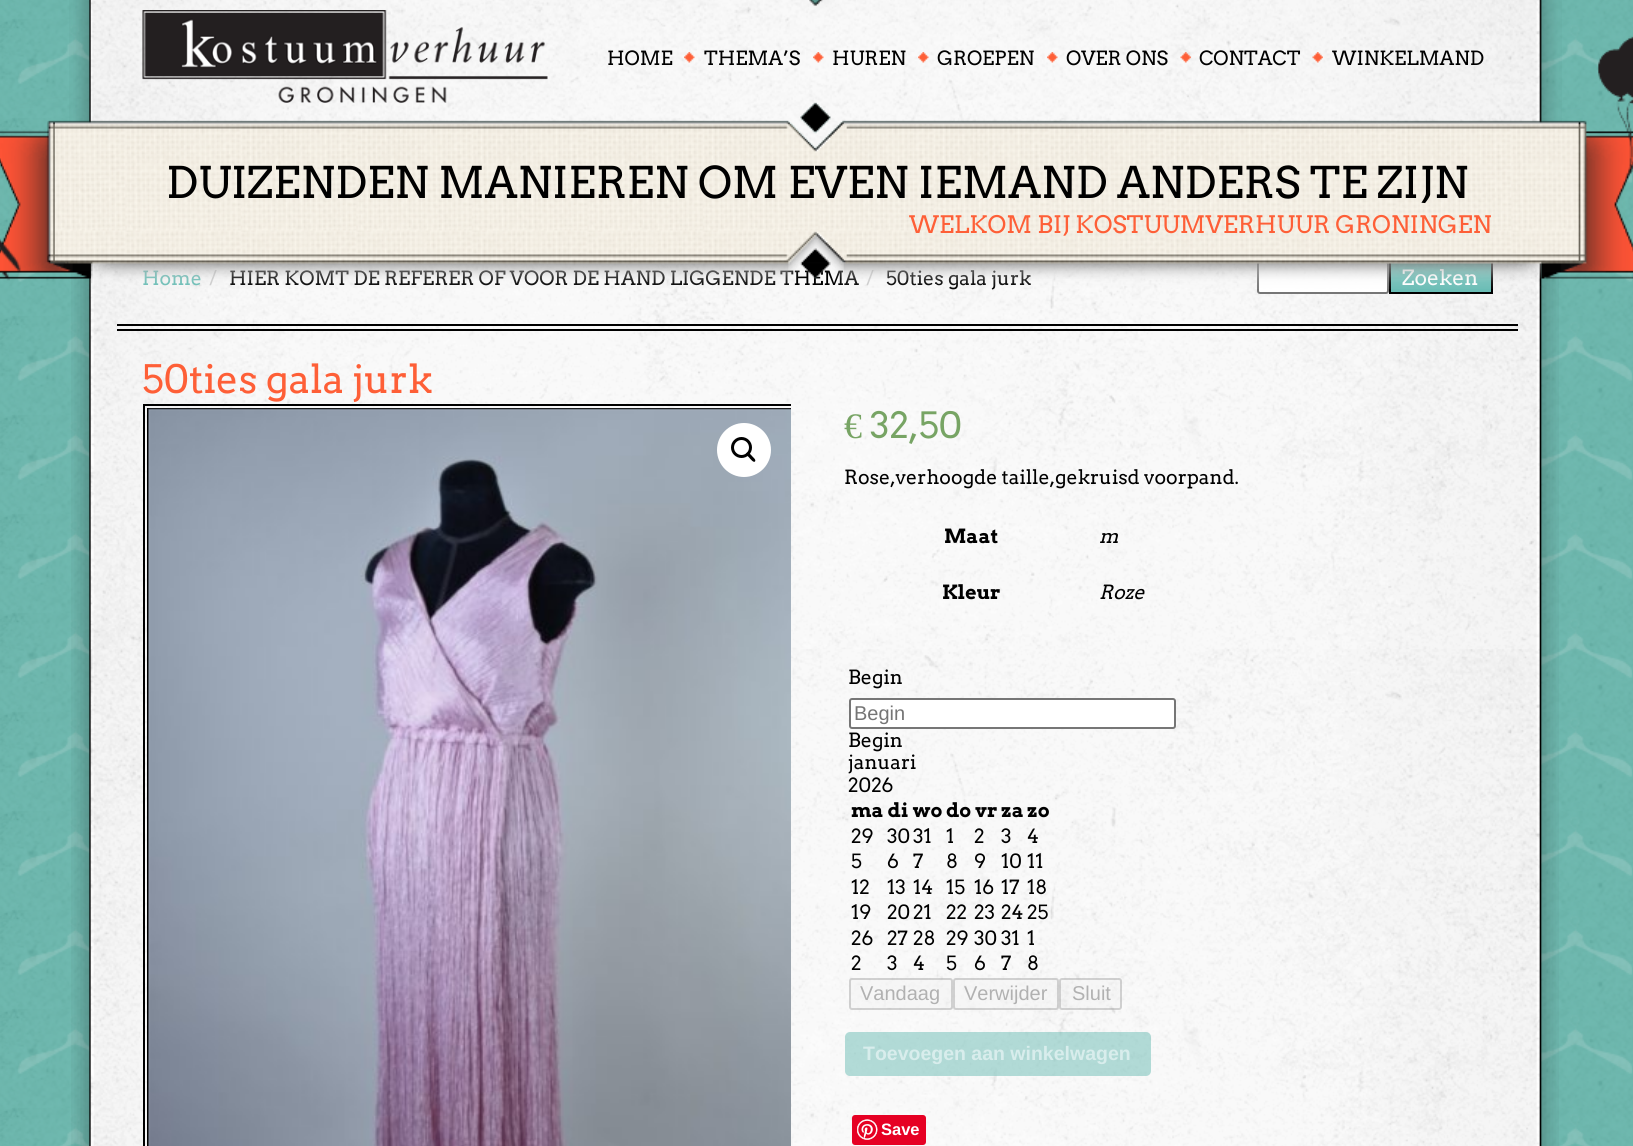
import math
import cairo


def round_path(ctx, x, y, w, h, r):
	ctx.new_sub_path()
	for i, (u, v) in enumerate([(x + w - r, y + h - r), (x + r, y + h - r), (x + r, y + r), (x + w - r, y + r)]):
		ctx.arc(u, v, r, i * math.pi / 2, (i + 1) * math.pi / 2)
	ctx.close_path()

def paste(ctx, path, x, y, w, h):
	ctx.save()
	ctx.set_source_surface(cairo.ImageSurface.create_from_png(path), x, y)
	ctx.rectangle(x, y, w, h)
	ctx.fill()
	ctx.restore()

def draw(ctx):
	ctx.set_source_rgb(1, 1, 1)
	ctx.paint()
	paste(ctx, 'media/1.png', 0, 0, 1633, 1146)
	paste(ctx, 'media/2.png', 69, 0, 1493, 150)
	paste(ctx, 'media/3.png', 142, 10, 406, 93)
	ctx.select_font_face('Arvo')
	ctx.set_font_size(19.5)
	ctx.set_source_rgb(0, 0, 0)
	ctx.move_to(607, 65)
	ctx.show_text('HOME')
	paste(ctx, 'media/4.png', 684, 52, 11, 11)
	ctx.move_to(704, 65)
	ctx.show_text('THEMA’S')
	paste(ctx, 'media/5.png', 813, 52, 11, 11)
	ctx.move_to(832, 65)
	ctx.show_text('HUREN')
	paste(ctx, 'media/6.png', 918, 52, 11, 11)
	ctx.move_to(937, 65)
	ctx.show_text('GROEPEN')
	paste(ctx, 'media/7.png', 1047, 52, 11, 11)
	ctx.move_to(1066, 65)
	ctx.show_text('OVER ONS')
	paste(ctx, 'media/8.png', 1180, 52, 11, 11)
	ctx.move_to(1199, 65)
	ctx.show_text('CONTACT')
	paste(ctx, 'media/9.png', 1312, 52, 11, 11)
	ctx.move_to(1332, 65)
	ctx.show_text('WINKELMAND')
	paste(ctx, 'media/11.png', 71, 234, 1488, 912)
	ctx.set_source_rgb(0.416, 0.741, 0.71)
	ctx.move_to(142, 285)
	ctx.show_text('Home')
	ctx.set_source_rgb(0.8, 0.8, 0.8)
	ctx.move_to(209, 285)
	ctx.show_text('/')
	ctx.set_source_rgb(0, 0, 0)
	ctx.move_to(229, 285)
	ctx.show_text('HIER KOMT DE REFERER OF VOOR DE HAND LIGGENDE THEMA')
	ctx.set_source_rgb(0.8, 0.8, 0.8)
	ctx.move_to(866, 285)
	ctx.show_text('/')
	ctx.set_source_rgb(0, 0, 0)
	ctx.move_to(886, 285)
	ctx.show_text('50ties gala jurk')
	ctx.set_source_rgb(1, 1, 1)
	round_path(ctx, 1258, 262, 130, 31, 2)
	ctx.fill_preserve()
	ctx.set_source_rgb(0.463, 0.463, 0.463)
	ctx.stroke()
	ctx.set_source_rgb(0.416, 0.741, 0.71)
	ctx.rectangle(1390, 262, 102, 31)
	ctx.fill_preserve()
	ctx.set_source_rgb(0, 0, 0)
	ctx.stroke()
	ctx.set_font_size(21)
	ctx.set_source_rgb(1, 1, 1)
	ctx.move_to(1402, 285)
	ctx.show_text('Zoeken')
	paste(ctx, 'media/10.png', 0, 36, 1633, 253)
	ctx.set_font_size(43.5)
	ctx.set_source_rgb(0, 0, 0)
	ctx.move_to(166, 198)
	ctx.show_text('DUIZENDEN MANIEREN OM EVEN IEMAND ANDERS TE ZIJN')
	ctx.set_font_size(24)
	ctx.set_source_rgb(0.996, 0.373, 0.216)
	ctx.move_to(909, 233)
	ctx.show_text('WELKOM BIJ KOSTUUMVERHUUR GRONINGEN')
	ctx.set_source_rgb(0, 0, 0)
	ctx.rectangle(117, 324, 1401, 2)
	ctx.fill()
	ctx.rectangle(117, 329, 1401, 2)
	ctx.fill()
	ctx.set_font_size(39)
	ctx.set_source_rgb(0.996, 0.373, 0.216)
	ctx.move_to(142, 393)
	ctx.show_text('50ties gala jurk')
	ctx.save()
	ctx.rectangle(143, 404, 648, 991)
	ctx.clip()
	ctx.rectangle(144, 405, 658, 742)
	ctx.set_source_rgb(0, 0, 0)
	ctx.stroke()
	ctx.rectangle(148, 409, 649, 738)
	ctx.stroke()
	ctx.restore()
	paste(ctx, 'media/12.png', 148, 408, 643, 738)
	ctx.set_source_rgb(1, 1, 1)
	ctx.arc(744, 450, 27, 0, 2 * math.pi)
	ctx.fill()
	ctx.arc(741.5, 447.5, 9, 0, 2 * math.pi)
	ctx.set_source_rgb(0, 0, 0)
	ctx.set_line_width(3)
	ctx.stroke()
	ctx.new_path()
	ctx.move_to(746.5, 453)
	ctx.curve_to(748, 451, 751, 455, 752, 456)
	ctx.curve_to(752.5, 457, 756.5, 459.5, 755, 461.5)
	ctx.curve_to(753.5, 463, 750.5, 459, 749.5, 458)
	ctx.curve_to(749, 457, 745, 454.5, 746.5, 453)
	ctx.close_path()
	ctx.fill()
	ctx.select_font_face('Liberation Serif')
	ctx.set_font_size(36)
	ctx.set_source_rgb(0.467, 0.643, 0.392)
	ctx.move_to(844, 438)
	ctx.show_text('€')
	ctx.select_font_face('Arvo')
	ctx.move_to(870, 438)
	ctx.show_text('32,50')
	ctx.set_font_size(19.5)
	ctx.set_source_rgb(0, 0, 0)
	ctx.move_to(844, 484)
	ctx.show_text('Rose,verhoogde taille,gekruisd voorpand.')
	ctx.select_font_face('Arvo', cairo.FONT_SLANT_NORMAL, cairo.FONT_WEIGHT_BOLD)
	ctx.move_to(944, 543)
	ctx.show_text('Maat')
	ctx.select_font_face('Arvo', cairo.FONT_SLANT_ITALIC)
	ctx.move_to(1099, 543)
	ctx.show_text('m')
	ctx.select_font_face('Arvo', cairo.FONT_SLANT_NORMAL, cairo.FONT_WEIGHT_BOLD)
	ctx.move_to(942, 599)
	ctx.show_text('Kleur')
	ctx.select_font_face('Arvo', cairo.FONT_SLANT_ITALIC)
	ctx.move_to(1099, 599)
	ctx.show_text('Roze')
	ctx.select_font_face('Arvo')
	ctx.move_to(848, 684)
	ctx.show_text('Begin')
	ctx.set_source_rgb(1, 1, 1)
	round_path(ctx, 850, 699, 325, 29, 2)
	ctx.fill_preserve()
	ctx.set_source_rgb(0.463, 0.463, 0.463)
	ctx.set_line_width(2)
	ctx.stroke()
	ctx.select_font_face('Liberation Sans')
	ctx.set_font_size(20)
	ctx.set_source_rgb(0.459, 0.459, 0.459)
	ctx.move_to(854, 720)
	ctx.show_text('Begin')
	ctx.select_font_face('Arvo')
	ctx.set_font_size(19.5)
	ctx.set_source_rgb(0, 0, 0)
	for x, y, s in [
		(848, 747, 'Begin'),
		(848, 769, 'januari'),
		(848, 792, '2026'),
	]:
		ctx.move_to(x, y)
		ctx.show_text(s)
	ctx.select_font_face('Arvo', cairo.FONT_SLANT_NORMAL, cairo.FONT_WEIGHT_BOLD)
	for x, y, s in [
		(851, 817, 'ma di wo'),
		(946, 817, 'do'),
		(975, 817, 'vr'),
		(1001, 817, 'za'),
		(1027, 817, 'zo'),
	]:
		ctx.move_to(x, y)
		ctx.show_text(s)
	ctx.select_font_face('Arvo')
	for x, y, s in [
		(851, 843, '29'),
		(887, 843, '30'),
		(913, 843, '31'),
		(946, 843, '1'),
		(974, 843, '2'),
		(1001, 843, '3'),
		(1027, 843, '4'),
		(851, 868, '5'),
		(887, 868, '6'),
		(913, 868, '7'),
		(946, 868, '8'),
		(974, 868, '9'),
		(1001, 868, '10'),
		(1027, 868, '11'),
		(851, 894, '12'),
		(887, 894, '13'),
		(913, 894, '14'),
		(946, 894, '15'),
		(974, 894, '16'),
		(1001, 894, '17'),
		(1027, 894, '18'),
		(851, 919, '19'),
		(887, 919, '20'),
		(913, 919, '21'),
		(946, 919, '22'),
		(974, 919, '23'),
		(1001, 919, '24'),
		(1027, 919, '25'),
		(851, 945, '26'),
		(887, 945, '27'),
		(913, 945, '28'),
		(946, 945, '29'),
		(974, 945, '30'),
		(1001, 945, '31'),
		(1027, 945, '1'),
		(851, 970, '2'),
		(887, 970, '3'),
		(913, 970, '4'),
		(946, 970, '5'),
		(974, 970, '6'),
		(1001, 970, '7'),
		(1027, 970, '8'),
	]:
		ctx.move_to(x, y)
		ctx.show_text(s)
	ctx.set_source_rgba(0.937, 0.937, 0.937, 0.3)
	round_path(ctx, 849, 978, 104, 32, 3)
	ctx.fill()
	round_path(ctx, 850, 979, 102, 30, 2)
	ctx.set_source_rgba(0.463, 0.463, 0.463, 0.3)
	ctx.stroke()
	ctx.select_font_face('Liberation Sans')
	ctx.set_font_size(20)
	ctx.set_source_rgb(0.694, 0.694, 0.694)
	ctx.move_to(860, 1000)
	ctx.show_text('Vandaag')
	ctx.set_source_rgba(0.937, 0.937, 0.937, 0.3)
	round_path(ctx, 953, 978, 106, 32, 3)
	ctx.fill()
	round_path(ctx, 954, 979, 104, 30, 2)
	ctx.set_source_rgba(0.463, 0.463, 0.463, 0.3)
	ctx.stroke()
	ctx.set_source_rgb(0.694, 0.694, 0.694)
	ctx.move_to(964, 1000)
	ctx.show_text('Verwijder')
	ctx.set_source_rgba(0.937, 0.937, 0.937, 0.3)
	round_path(ctx, 1059, 978, 63, 32, 3)
	ctx.fill()
	round_path(ctx, 1060, 979, 61, 30, 2)
	ctx.set_source_rgba(0.463, 0.463, 0.463, 0.3)
	ctx.stroke()
	ctx.set_source_rgb(0.694, 0.694, 0.694)
	ctx.move_to(1072, 1000)
	ctx.show_text('Sluit')
	ctx.set_source_rgba(0.416, 0.741, 0.71, 0.5)
	round_path(ctx, 845, 1032, 306, 44, 5)
	ctx.fill()
	ctx.select_font_face('Liberation Sans', cairo.FONT_SLANT_NORMAL, cairo.FONT_WEIGHT_BOLD)
	ctx.set_font_size(19.5)
	ctx.set_source_rgb(0.847, 0.929, 0.922)
	ctx.move_to(863, 1060)
	ctx.show_text('Toevoegen aan winkelwagen')
	ctx.set_source_rgb(0.902, 0, 0.137)
	round_path(ctx, 852, 1115, 74, 30, 3)
	ctx.fill()
	paste(ctx, 'media/13.png', 857, 1119, 21, 21)
	ctx.set_font_size(16.5)
	ctx.set_source_rgb(1, 1, 1)
	ctx.move_to(881, 1135)
	ctx.show_text('Save')


surface = cairo.ImageSurface(cairo.FORMAT_RGB24, 1633, 1146)
ctx = cairo.Context(surface)
options = cairo.FontOptions()
options.set_hint_metrics(cairo.HINT_METRICS_OFF)
options.set_hint_style(cairo.HINT_STYLE_NONE)
ctx.set_font_options(options)
ctx.set_miter_limit(4)
draw(ctx)
surface.write_to_png('image.png')
